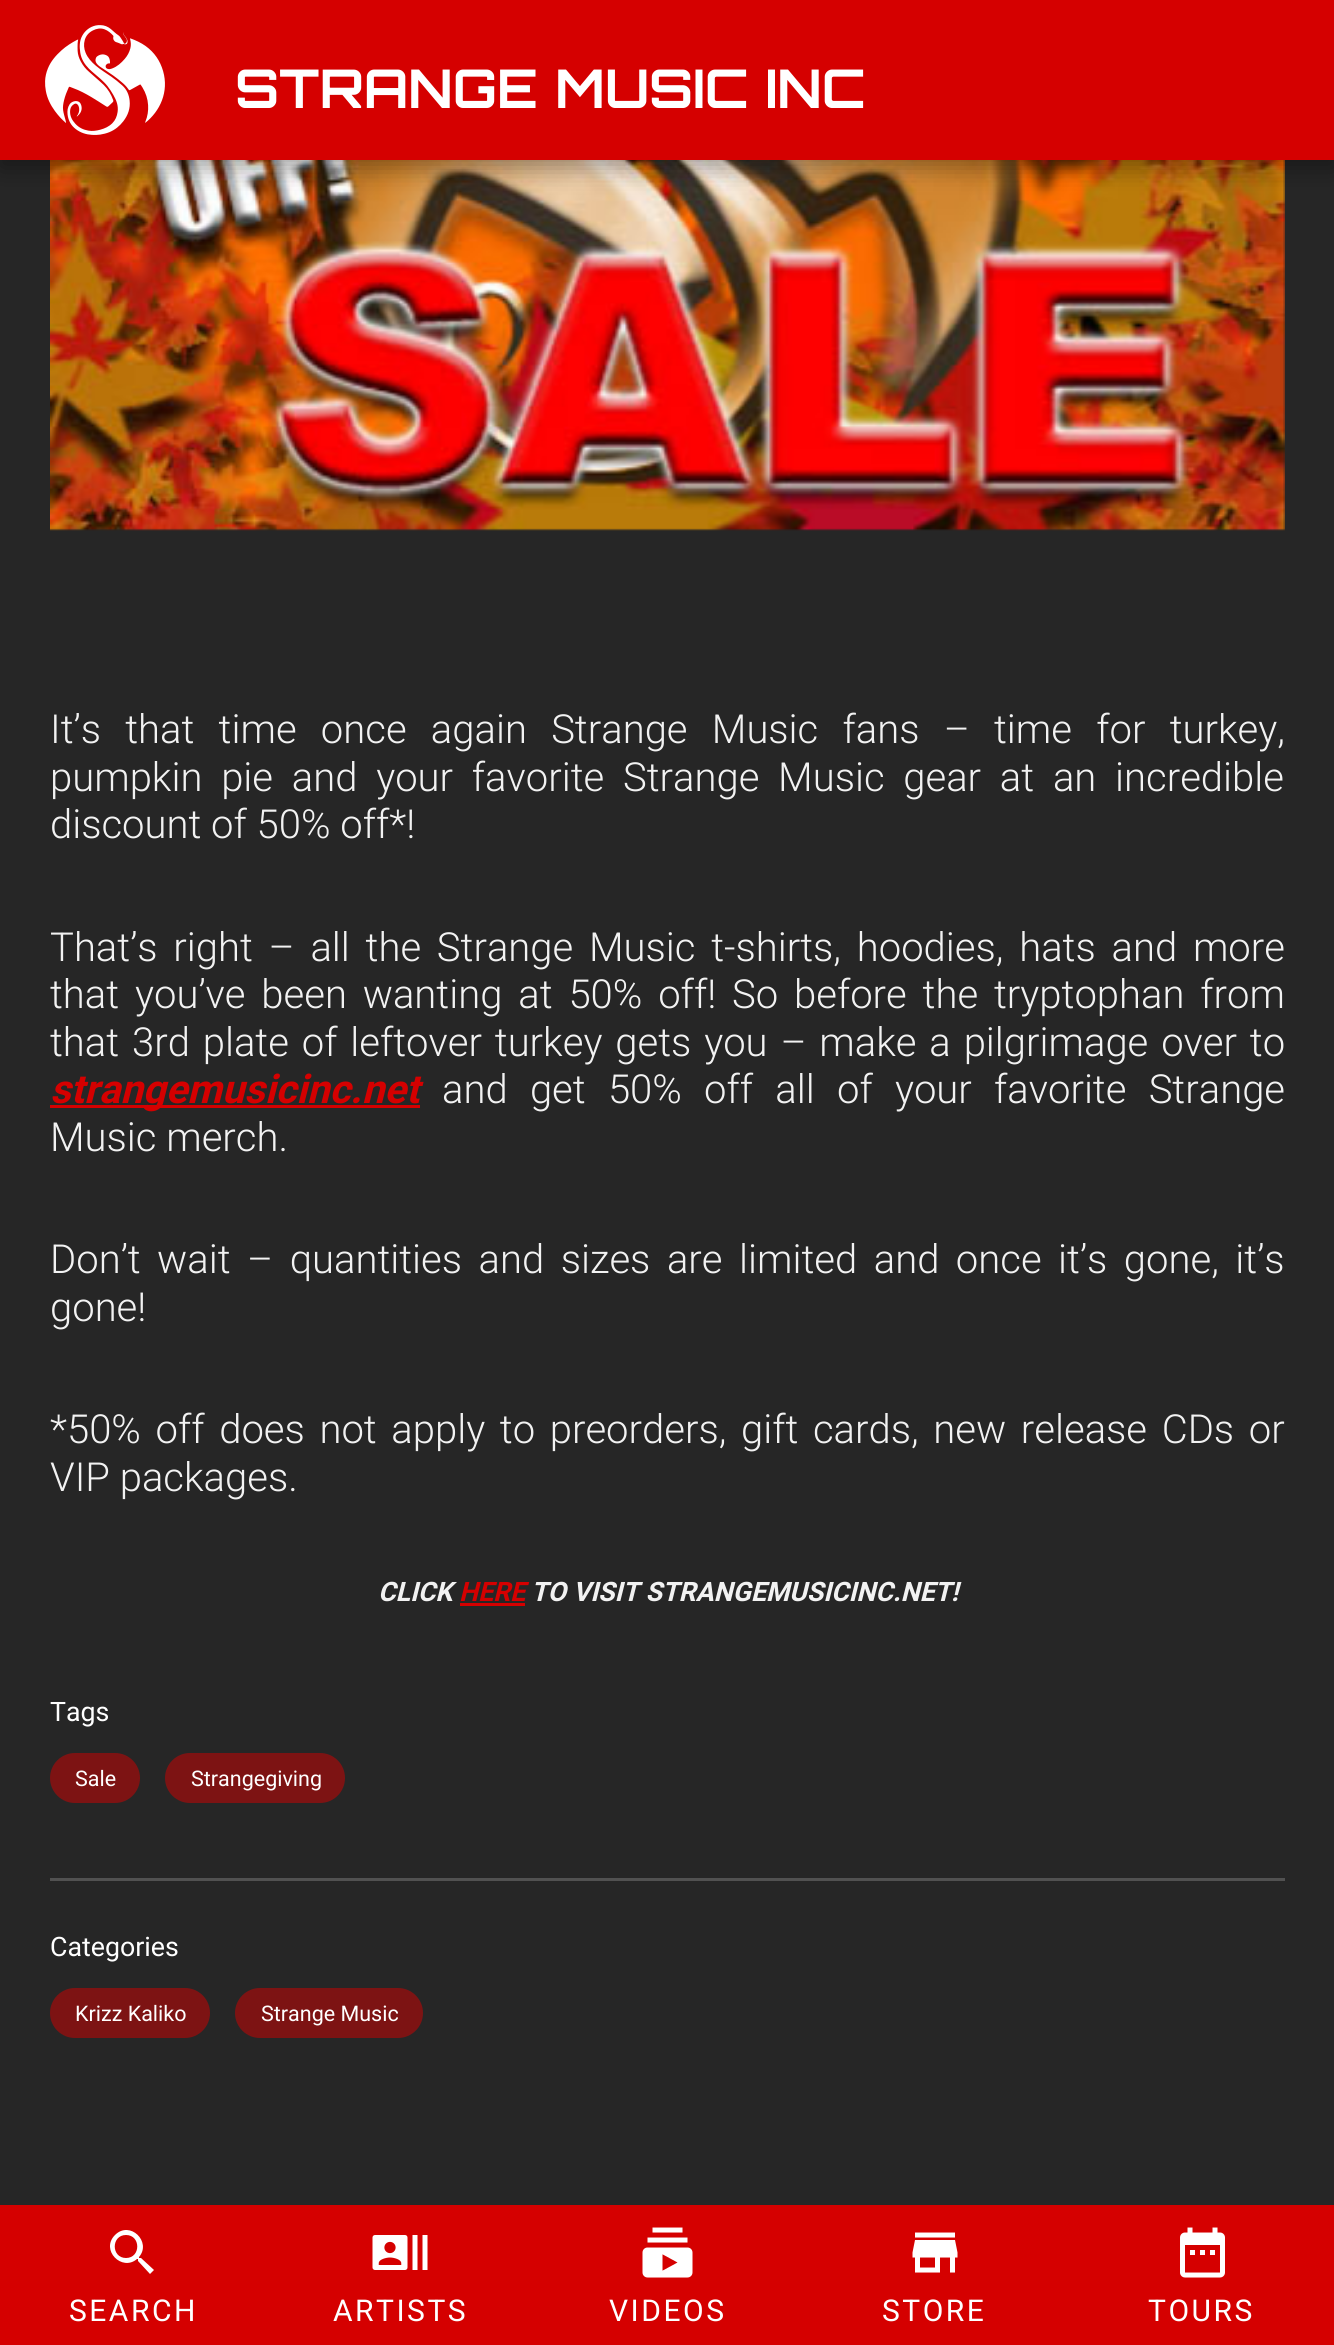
import math
import cairo


def write_spaced(ctx, x, y, s, letter, word):
	ctx.move_to(x, y)
	for ch in s:
		ctx.show_text(ch)
		ctx.rel_move_to(letter + word * (ch == ' '), 0)

def round_path(ctx, x, y, w, h, r):
	ctx.new_sub_path()
	for i, (u, v) in enumerate([(x + w - r, y + h - r), (x + r, y + h - r), (x + r, y + r), (x + w - r, y + r)]):
		ctx.arc(u, v, r, i * math.pi / 2, (i + 1) * math.pi / 2)
	ctx.close_path()

def blur_box(ctx, x, y, w, h, r, blur, alpha):
	ctx.push_group_with_content(cairo.CONTENT_ALPHA)
	ctx.set_operator(cairo.OPERATOR_SOURCE)
	for i in range(15, -16, -2):
		e = blur * i / 6
		if min(w, h) + 2 * e > 0:
			ctx.set_source_rgba(0, 0, 0, alpha * math.erfc((i - 1) / 8.5) / 2)
			round_path(ctx, x - e, y - e, w + 2 * e, h + 2 * e, max(0, min(r + e + blur * .6, min(w, h) / 2 + e)))
			ctx.fill()
	ctx.mask(ctx.pop_group())

def paste(ctx, path, x, y, w, h):
	ctx.save()
	ctx.set_source_surface(cairo.ImageSurface.create_from_png(path), x, y)
	ctx.rectangle(x, y, w, h)
	ctx.fill()
	ctx.restore()

def draw(ctx):
	ctx.set_source_rgb(0.149, 0.149, 0.149)
	ctx.paint()
	paste(ctx, 'media/6.png', 50, 160, 1235, 371)
	ctx.set_source_rgb(0, 0, 0)
	blur_box(ctx, 0, 8, 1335, 160, 0, 12.5, 0.23)
	blur_box(ctx, 0, 8, 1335, 160, 0, 12.5, 0.16)
	ctx.set_source_rgb(0.835, 0, 0)
	ctx.rectangle(0, 0, 1334, 160)
	ctx.fill()
	paste(ctx, 'media/1.png', 45, 25, 120, 110)
	ctx.select_font_face('Orbitron', cairo.FONT_SLANT_NORMAL, cairo.FONT_WEIGHT_BOLD)
	ctx.set_font_size(53.4)
	ctx.set_source_rgb(1, 1, 1)
	write_spaced(ctx, 235, 108, 'STRANGE MUSIC INC', 0, 1)
	ctx.set_source_rgb(0.835, 0, 0)
	ctx.rectangle(0, 2205, 1334, 140)
	ctx.fill()
	ctx.set_source_rgb(1, 1, 1)
	ctx.new_path()
	ctx.move_to(141, 2258)
	ctx.line_to(139, 2258)
	ctx.line_to(139, 2257)
	ctx.curve_to(152, 2242, 130, 2220, 115, 2235)
	ctx.curve_to(100, 2250, 122, 2272, 137, 2259)
	ctx.line_to(138, 2259)
	ctx.line_to(138, 2261)
	ctx.line_to(150, 2274)
	ctx.line_to(154, 2270)
	ctx.close_path()
	ctx.move_to(126, 2258)
	ctx.curve_to(111, 2258, 111, 2235, 126, 2235)
	ctx.curve_to(141, 2235, 141, 2258, 126, 2258)
	ctx.close_path()
	ctx.fill()
	ctx.select_font_face('Roboto')
	ctx.set_font_size(30)
	write_spaced(ctx, 69, 2321, 'SEARCH', 2.5, 0)
	paste(ctx, 'media/2.png', 372, 2235, 56, 35)
	write_spaced(ctx, 333, 2321, 'ARTISTS', 2.5, 0)
	paste(ctx, 'media/3.png', 642, 2227, 51, 51)
	write_spaced(ctx, 609, 2321, 'VIDEOS', 2.5, 0)
	paste(ctx, 'media/4.png', 912, 2232, 46, 41)
	write_spaced(ctx, 882, 2321, 'STORE', 2.5, 0)
	paste(ctx, 'media/5.png', 1180, 2227, 45, 51)
	write_spaced(ctx, 1148, 2321, 'TOURS', 2.5, 0)
	ctx.select_font_face('Roboto Light')
	ctx.set_font_size(40)
	ctx.set_source_rgb(0.949, 0.949, 0.949)
	write_spaced(ctx, 50, 743, 'It’s that time once again Strange Music fans – time for turkey,', 0, 14.5)
	write_spaced(ctx, 50, 791, 'pumpkin pie and your favorite Strange Music gear at an incredible', 0, 9)
	ctx.move_to(50, 838)
	ctx.show_text('discount of 50% off*!')
	write_spaced(ctx, 50, 961, 'That’s right – all the Strange Music t-shirts, hoodies, hats and more', 0, 6)
	write_spaced(ctx, 50, 1008, 'that you’ve been wanting at 50% off! So before the tryptophan from', 0, 6.1)
	write_spaced(ctx, 50, 1056, 'that 3rd plate of leftover turkey gets you – make a pilgrimage over to', 0, 3.1)
	ctx.set_source_rgb(0.835, 0, 0)
	ctx.rectangle(50, 1105, 370, 3)
	ctx.fill()
	ctx.select_font_face('Roboto', cairo.FONT_SLANT_ITALIC, cairo.FONT_WEIGHT_BOLD)
	ctx.move_to(50, 1103)
	ctx.show_text('strangemusicinc.net')
	ctx.select_font_face('Roboto Light')
	ctx.set_source_rgb(0.949, 0.949, 0.949)
	write_spaced(ctx, 442, 1103, 'and get 50% off all of your favorite Strange', 0, 12.5)
	ctx.move_to(50, 1151)
	ctx.show_text('Music merch.')
	write_spaced(ctx, 50, 1273, 'Don’t wait – quantities and sizes are limited and once it’s gone, it’s', 0, 6.75)
	ctx.move_to(50, 1321)
	ctx.show_text('gone!')
	write_spaced(ctx, 50, 1443, '*50% off does not apply to preorders, gift cards, new release CDs or', 0, 4.9)
	ctx.move_to(50, 1491)
	ctx.show_text('VIP packages.')
	ctx.select_font_face('Roboto', cairo.FONT_SLANT_ITALIC, cairo.FONT_WEIGHT_BOLD)
	ctx.set_font_size(26.75)
	ctx.move_to(378, 1601)
	ctx.show_text('CLICK')
	ctx.set_source_rgb(0.835, 0, 0)
	ctx.move_to(459, 1601)
	ctx.show_text('HERE')
	ctx.rectangle(460, 1603, 65, 3)
	ctx.fill()
	ctx.set_source_rgb(0.949, 0.949, 0.949)
	ctx.move_to(531, 1601)
	ctx.show_text('TO VISIT STRANGEMUSICINC.NET!')
	ctx.select_font_face('Roboto')
	ctx.set_source_rgb(1, 1, 1)
	ctx.move_to(50, 1721)
	ctx.show_text('Tags')
	ctx.set_source_rgba(0.835, 0, 0, 0.5)
	round_path(ctx, 50, 1753, 90, 50, 25)
	ctx.fill()
	ctx.set_font_size(21.5)
	ctx.set_source_rgb(1, 1, 1)
	ctx.move_to(75, 1786)
	ctx.show_text('Sale')
	ctx.set_source_rgba(0.835, 0, 0, 0.5)
	round_path(ctx, 165, 1753, 180, 50, 25)
	ctx.fill()
	ctx.set_source_rgb(1, 1, 1)
	ctx.move_to(191, 1786)
	ctx.show_text('Strangegiving')
	ctx.set_source_rgb(0.318, 0.318, 0.318)
	ctx.rectangle(50, 1878, 1235, 3)
	ctx.fill()
	ctx.set_font_size(26.75)
	ctx.set_source_rgb(1, 1, 1)
	ctx.move_to(50, 1956)
	ctx.show_text('Categories')
	ctx.set_source_rgba(0.835, 0, 0, 0.5)
	round_path(ctx, 50, 1988, 160, 50, 25)
	ctx.fill()
	ctx.set_font_size(21.5)
	ctx.set_source_rgb(1, 1, 1)
	ctx.move_to(75, 2021)
	ctx.show_text('Krizz Kaliko')
	ctx.set_source_rgba(0.835, 0, 0, 0.5)
	round_path(ctx, 235, 1988, 188, 50, 25)
	ctx.fill()
	ctx.set_source_rgb(1, 1, 1)
	ctx.move_to(261, 2021)
	ctx.show_text('Strange Music')


surface = cairo.ImageSurface(cairo.FORMAT_RGB24, 1334, 2345)
ctx = cairo.Context(surface)
options = cairo.FontOptions()
options.set_hint_metrics(cairo.HINT_METRICS_OFF)
options.set_hint_style(cairo.HINT_STYLE_NONE)
ctx.set_font_options(options)
ctx.set_miter_limit(4)
draw(ctx)
surface.write_to_png('image.png')
